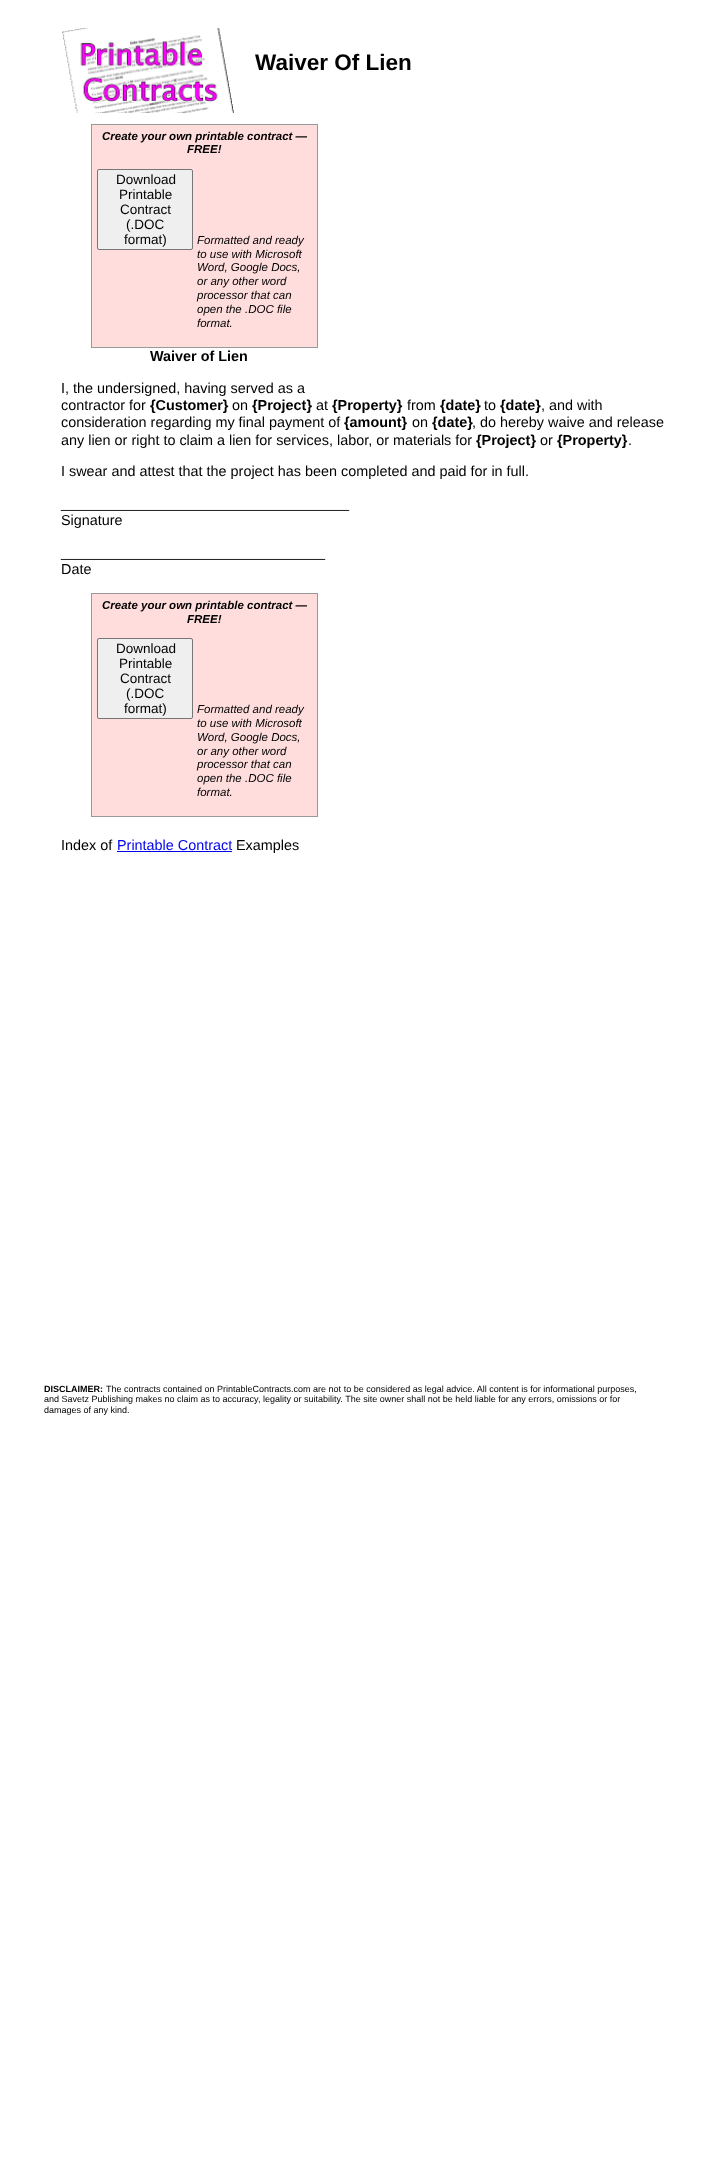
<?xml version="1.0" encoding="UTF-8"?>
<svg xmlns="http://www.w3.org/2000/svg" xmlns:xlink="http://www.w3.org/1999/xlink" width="722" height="2164">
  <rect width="100%" height="100%" fill="#ffffff" />
  <image x="62" y="28" width="172" height="85" xlink:href="image1.png" />
  <rect x="91.5" y="124.5" width="226" height="223" fill="#ffdddd" stroke="#999999" />
  <rect x="97.5" y="169.5" width="95" height="80" rx="1.5" fill="#efefef" stroke="#767676" />
  <rect x="91.5" y="593.5" width="226" height="223" fill="#ffdddd" stroke="#999999" />
  <rect x="97.5" y="638.5" width="95" height="80" rx="1.5" fill="#efefef" stroke="#767676" />
  <rect x="117" y="851" width="115" height="1" fill="#0000ee" />
  <text x="255" y="70" style="font-family: Liberation Sans; font-size: 22.5px; font-weight: bold; fill: #000000">Waiver Of Lien</text>
  <text x="102" y="140" style="font-family: Liberation Sans; font-size: 11.5px; font-weight: bold; font-style: italic; fill: #000000">Create your own printable contract —</text>
  <text x="187" y="153" style="font-family: Liberation Sans; font-size: 11.5px; font-weight: bold; font-style: italic; fill: #000000">FREE!</text>
  <text x="116" y="184" style="font-family: Liberation Sans; font-size: 13.5px; fill: #000000">Download</text>
  <text x="119" y="199" style="font-family: Liberation Sans; font-size: 13.5px; fill: #000000">Printable</text>
  <text x="120" y="214" style="font-family: Liberation Sans; font-size: 13.5px; fill: #000000">Contract</text>
  <text x="126" y="229" style="font-family: Liberation Sans; font-size: 13.5px; fill: #000000">(.DOC</text>
  <text x="124" y="244" style="font-family: Liberation Sans; font-size: 13.5px; fill: #000000">format)</text>
  <text x="197" y="244" style="font-family: Liberation Sans; font-size: 11.5px; font-style: italic; fill: #000000">Formatted and ready</text>
  <text x="197" y="258" style="font-family: Liberation Sans; font-size: 11.5px; font-style: italic; fill: #000000">to use with Microsoft</text>
  <text x="197" y="271" style="font-family: Liberation Sans; font-size: 11.5px; font-style: italic; fill: #000000">Word, Google Docs,</text>
  <text x="197" y="285" style="font-family: Liberation Sans; font-size: 11.5px; font-style: italic; fill: #000000">or any other word</text>
  <text x="197" y="299" style="font-family: Liberation Sans; font-size: 11.5px; font-style: italic; fill: #000000">processor that can</text>
  <text x="197" y="313" style="font-family: Liberation Sans; font-size: 11.5px; font-style: italic; fill: #000000">open the .DOC file</text>
  <text x="197" y="327" style="font-family: Liberation Sans; font-size: 11.5px; font-style: italic; fill: #000000">format.</text>
  <text x="150" y="361" style="font-family: Liberation Sans; font-size: 14.4px; font-weight: bold; fill: #000000">Waiver of Lien</text>
  <text x="61" y="393" style="font-family: Liberation Sans; font-size: 14.4px; fill: #000000">I, the undersigned, having served as a</text>
  <text x="61" y="410" style="font-family: Liberation Sans; font-size: 14.4px; fill: #000000">contractor for</text>
  <text x="150" y="410" style="font-family: Liberation Sans; font-size: 14.4px; font-weight: bold; fill: #000000">{Customer}</text>
  <text x="232" y="410" style="font-family: Liberation Sans; font-size: 14.4px; fill: #000000">on</text>
  <text x="252" y="410" style="font-family: Liberation Sans; font-size: 14.4px; font-weight: bold; fill: #000000">{Project}</text>
  <text x="316" y="410" style="font-family: Liberation Sans; font-size: 14.4px; fill: #000000">at</text>
  <text x="332" y="410" style="font-family: Liberation Sans; font-size: 14.4px; font-weight: bold; fill: #000000">{Property}</text>
  <text x="407" y="410" style="font-family: Liberation Sans; font-size: 14.4px; fill: #000000">from</text>
  <text x="440" y="410" style="font-family: Liberation Sans; font-size: 14.4px; font-weight: bold; fill: #000000">{date}</text>
  <text x="484" y="410" style="font-family: Liberation Sans; font-size: 14.4px; fill: #000000">to</text>
  <text x="500" y="410" style="font-family: Liberation Sans; font-size: 14.4px; font-weight: bold; fill: #000000">{date}</text>
  <text x="541" y="410" style="font-family: Liberation Sans; font-size: 14.4px; fill: #000000">, and with</text>
  <text x="61" y="427" style="font-family: Liberation Sans; font-size: 14.4px; fill: #000000">consideration regarding my final payment of</text>
  <text x="344" y="427" style="font-family: Liberation Sans; font-size: 14.4px; font-weight: bold; fill: #000000">{amount}</text>
  <text x="412" y="427" style="font-family: Liberation Sans; font-size: 14.4px; fill: #000000">on</text>
  <text x="432" y="427" style="font-family: Liberation Sans; font-size: 14.4px; font-weight: bold; fill: #000000">{date}</text>
  <text x="472" y="427" style="font-family: Liberation Sans; font-size: 14.4px; fill: #000000">, do hereby waive and release</text>
  <text x="61" y="445" style="font-family: Liberation Sans; font-size: 14.4px; fill: #000000">any lien or right to claim a lien for services, labor, or materials for</text>
  <text x="476" y="445" style="font-family: Liberation Sans; font-size: 14.4px; font-weight: bold; fill: #000000">{Project}</text>
  <text x="540" y="445" style="font-family: Liberation Sans; font-size: 14.4px; fill: #000000">or</text>
  <text x="557" y="445" style="font-family: Liberation Sans; font-size: 14.4px; font-weight: bold; fill: #000000">{Property}</text>
  <text x="628" y="445" style="font-family: Liberation Sans; font-size: 14.4px; fill: #000000">.</text>
  <text x="61" y="476" style="font-family: Liberation Sans; font-size: 14.4px; fill: #000000">I swear and attest that the project has been completed and paid for in full.</text>
  <text x="61" y="508" style="font-family: Liberation Sans; font-size: 14.4px; fill: #000000">____________________________________</text>
  <text x="61" y="525" style="font-family: Liberation Sans; font-size: 14.4px; fill: #000000">Signature</text>
  <text x="61" y="557" style="font-family: Liberation Sans; font-size: 14.4px; fill: #000000">_________________________________</text>
  <text x="61" y="574" style="font-family: Liberation Sans; font-size: 14.4px; fill: #000000">Date</text>
  <text x="102" y="609" style="font-family: Liberation Sans; font-size: 11.5px; font-weight: bold; font-style: italic; fill: #000000">Create your own printable contract —</text>
  <text x="187" y="623" style="font-family: Liberation Sans; font-size: 11.5px; font-weight: bold; font-style: italic; fill: #000000">FREE!</text>
  <text x="116" y="653" style="font-family: Liberation Sans; font-size: 13.5px; fill: #000000">Download</text>
  <text x="119" y="668" style="font-family: Liberation Sans; font-size: 13.5px; fill: #000000">Printable</text>
  <text x="120" y="683" style="font-family: Liberation Sans; font-size: 13.5px; fill: #000000">Contract</text>
  <text x="126" y="698" style="font-family: Liberation Sans; font-size: 13.5px; fill: #000000">(.DOC</text>
  <text x="124" y="713" style="font-family: Liberation Sans; font-size: 13.5px; fill: #000000">format)</text>
  <text x="197" y="713" style="font-family: Liberation Sans; font-size: 11.5px; font-style: italic; fill: #000000">Formatted and ready</text>
  <text x="197" y="727" style="font-family: Liberation Sans; font-size: 11.5px; font-style: italic; fill: #000000">to use with Microsoft</text>
  <text x="197" y="741" style="font-family: Liberation Sans; font-size: 11.5px; font-style: italic; fill: #000000">Word, Google Docs,</text>
  <text x="197" y="755" style="font-family: Liberation Sans; font-size: 11.5px; font-style: italic; fill: #000000">or any other word</text>
  <text x="197" y="768" style="font-family: Liberation Sans; font-size: 11.5px; font-style: italic; fill: #000000">processor that can</text>
  <text x="197" y="782" style="font-family: Liberation Sans; font-size: 11.5px; font-style: italic; fill: #000000">open the .DOC file</text>
  <text x="197" y="796" style="font-family: Liberation Sans; font-size: 11.5px; font-style: italic; fill: #000000">format.</text>
  <text x="61" y="850" style="font-family: Liberation Sans; font-size: 14.4px; fill: #000000">Index of</text>
  <text x="117" y="850" style="font-family: Liberation Sans; font-size: 14.4px; fill: #0000ee">Printable Contract</text>
  <text x="236" y="850" style="font-family: Liberation Sans; font-size: 14.4px; fill: #000000">Examples</text>
  <text x="44" y="1392" style="font-family: Liberation Sans; font-size: 9px; font-weight: bold; fill: #000000">DISCLAIMER:</text>
  <text x="106" y="1392" style="font-family: Liberation Sans; font-size: 9px; fill: #000000">The contracts contained on PrintableContracts.com are not to be considered as legal advice. All content is for informational purposes,</text>
  <text x="44" y="1402" style="font-family: Liberation Sans; font-size: 9px; fill: #000000">and Savetz Publishing makes no claim as to accuracy, legality or suitability. The site owner shall not be held liable for any errors, omissions or for</text>
  <text x="44" y="1413" style="font-family: Liberation Sans; font-size: 9px; fill: #000000">damages of any kind.</text>
</svg>
